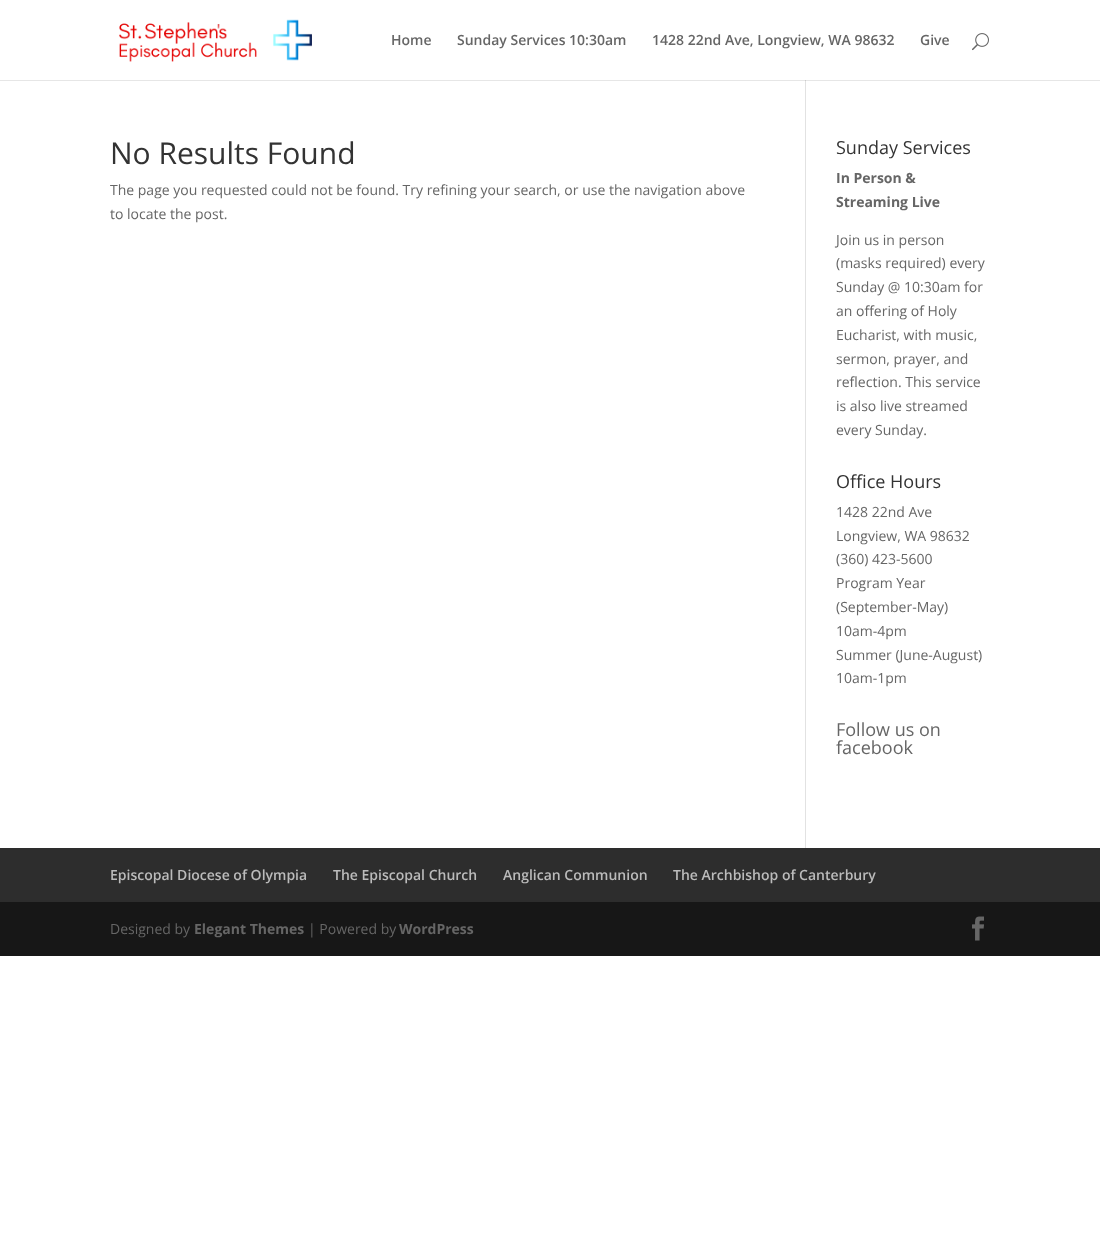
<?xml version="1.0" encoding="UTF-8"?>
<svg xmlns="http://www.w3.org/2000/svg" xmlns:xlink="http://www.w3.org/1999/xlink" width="1100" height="1243">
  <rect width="100%" height="100%" fill="#ffffff" />
  <rect y="80" width="1100" height="1" fill="#e6e6e6" />
  <image x="119" y="19" width="193" height="43" xlink:href="image1.png" />
  <image x="972" y="33" width="17" height="18" xlink:href="image2.png" />
  <rect x="805" y="80" width="1" height="768" fill="#e2e2e2" />
  <rect x="805" y="80" width="1" height="1" fill="#cbcbcb" />
  <rect y="848" width="1100" height="54" fill="#2d2d2d" />
  <rect y="902" width="1100" height="54" fill="#171717" />
  <image x="972" y="916" width="12" height="25" xlink:href="image3.png" />
  <text x="391" y="45" style="font-family: Open Sans; font-size: 14px; font-weight: 600; fill: #666666">Home</text>
  <text x="457" y="45" style="font-family: Open Sans; font-size: 14px; font-weight: 600; fill: #666666">Sunday Services 10:30am</text>
  <text x="652" y="45" style="font-family: Open Sans; font-size: 14px; font-weight: 600; fill: #666666">1428 22nd Ave, Longview, WA 98632</text>
  <text x="920" y="45" style="font-family: Open Sans; font-size: 14px; font-weight: 600; fill: #666666">Give</text>
  <text x="110" y="164" style="font-family: Open Sans; font-size: 30px; fill: #333333">No Results Found</text>
  <text x="110" y="195" style="font-family: Open Sans; font-size: 14px; fill: #666666">The page you requested could not be found. Try refining your search, or use the navigation above</text>
  <text x="110" y="219" style="font-family: Open Sans; font-size: 14px; fill: #666666">to locate the post.</text>
  <text x="836" y="154" style="font-family: Open Sans; font-size: 18px; fill: #333333">Sunday Services</text>
  <text x="836" y="183" style="font-family: Open Sans; font-size: 14px; font-weight: bold; fill: #666666">In Person &amp;</text>
  <text x="836" y="207" style="font-family: Open Sans; font-size: 14px; font-weight: bold; fill: #666666">Streaming Live</text>
  <text x="836" y="245" style="font-family: Open Sans; font-size: 14px; fill: #666666">Join us in person</text>
  <text x="836" y="268" style="font-family: Open Sans; font-size: 14px; fill: #666666">(masks required) every</text>
  <text x="836" y="292" style="font-family: Open Sans; font-size: 14px; fill: #666666">Sunday @ 10:30am for</text>
  <text x="836" y="316" style="font-family: Open Sans; font-size: 14px; fill: #666666">an offering of Holy</text>
  <text x="836" y="340" style="font-family: Open Sans; font-size: 14px; fill: #666666">Eucharist, with music,</text>
  <text x="836" y="364" style="font-family: Open Sans; font-size: 14px; fill: #666666">sermon, prayer, and</text>
  <text x="836" y="387" style="font-family: Open Sans; font-size: 14px; fill: #666666">reflection. This service</text>
  <text x="836" y="411" style="font-family: Open Sans; font-size: 14px; fill: #666666">is also live streamed</text>
  <text x="836" y="435" style="font-family: Open Sans; font-size: 14px; fill: #666666">every Sunday.</text>
  <text x="836" y="488" style="font-family: Open Sans; font-size: 18px; fill: #333333">Office Hours</text>
  <text x="836" y="517" style="font-family: Open Sans; font-size: 14px; fill: #666666">1428 22nd Ave</text>
  <text x="836" y="541" style="font-family: Open Sans; font-size: 14px; fill: #666666">Longview, WA 98632</text>
  <text x="836" y="564" style="font-family: Open Sans; font-size: 14px; fill: #666666">(360) 423-5600</text>
  <text x="836" y="588" style="font-family: Open Sans; font-size: 14px; fill: #666666">Program Year</text>
  <text x="836" y="612" style="font-family: Open Sans; font-size: 14px; fill: #666666">(September-May)</text>
  <text x="836" y="636" style="font-family: Open Sans; font-size: 14px; fill: #666666">10am-4pm</text>
  <text x="836" y="660" style="font-family: Open Sans; font-size: 14px; fill: #666666">Summer (June-August)</text>
  <text x="836" y="683" style="font-family: Open Sans; font-size: 14px; fill: #666666">10am-1pm</text>
  <text x="836" y="736" style="font-family: Open Sans; font-size: 18px; fill: #666666">Follow us on</text>
  <text x="836" y="754" style="font-family: Open Sans; font-size: 18px; fill: #666666">facebook</text>
  <text x="110" y="880" style="font-family: Open Sans; font-size: 14px; font-weight: 600; fill: #bbbbbb">Episcopal Diocese of Olympia</text>
  <text x="333" y="880" style="font-family: Open Sans; font-size: 14px; font-weight: 600; fill: #bbbbbb">The Episcopal Church</text>
  <text x="503" y="880" style="font-family: Open Sans; font-size: 14px; font-weight: 600; fill: #bbbbbb">Anglican Communion</text>
  <text x="673" y="880" style="font-family: Open Sans; font-size: 14px; font-weight: 600; fill: #bbbbbb">The Archbishop of Canterbury</text>
  <text x="110" y="934" style="font-family: Open Sans; font-size: 14px; fill: #666666">Designed by</text>
  <text x="194" y="934" style="font-family: Open Sans; font-size: 14px; font-weight: bold; fill: #666666">Elegant Themes</text>
  <text x="308" y="934" style="font-family: Open Sans; font-size: 14px; fill: #666666">| Powered by</text>
  <text x="399" y="934" style="font-family: Open Sans; font-size: 14px; font-weight: bold; fill: #666666">WordPress</text>
</svg>
